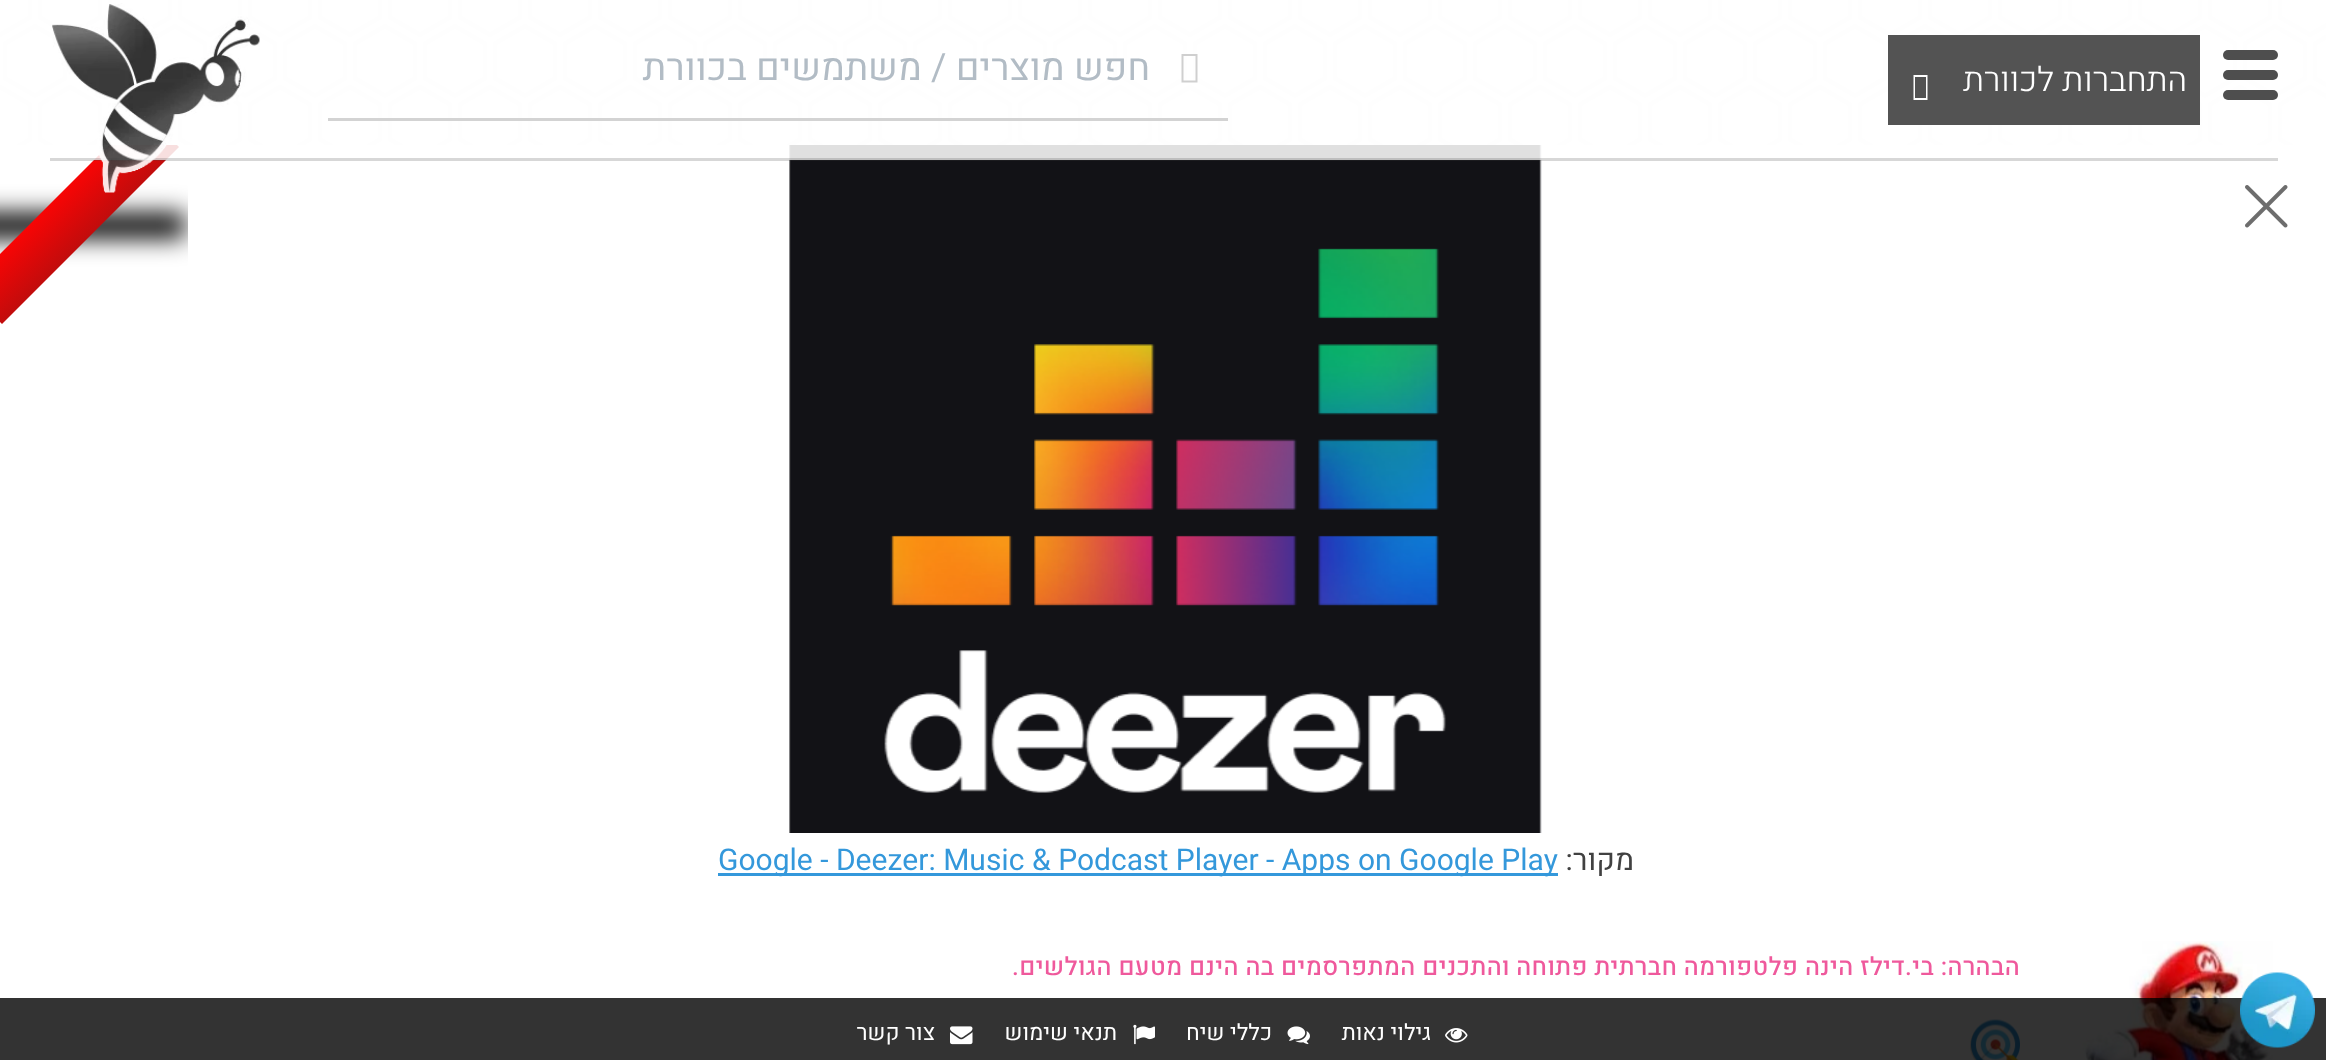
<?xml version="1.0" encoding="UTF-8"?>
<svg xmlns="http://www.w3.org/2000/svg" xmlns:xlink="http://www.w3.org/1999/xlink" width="2326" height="1060">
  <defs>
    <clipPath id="clip1"><rect x="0" y="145" width="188" height="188" /></clipPath>
    <clipPath id="clip2"><rect y="145" width="188" height="188" /></clipPath>
    <linearGradient id="g1" gradientUnits="userSpaceOnUse" x1="55" y1="200" x2="90" y2="235"><stop offset="0" stop-color="#f70505" /><stop offset="1" stop-color="#c20c0c" /></linearGradient>
  </defs>
  <rect width="100%" height="100%" fill="#ffffff" />
  <image x="0" y="0" width="2326" height="145" xlink:href="image1.png" />
  <image x="0" y="0" width="2326" height="145" xlink:href="image3.png" />
  <image x="789" y="145" width="753" height="688" xlink:href="image5.png" />
  <image x="789" y="145" width="753" height="688" xlink:href="image6.png" />
  <g clip-path="url(#clip1)">
    <rect x="-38" y="213" width="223" height="25" fill="#000000" filter="blur(12.5px)" />
  </g>
  <g clip-path="url(#clip2)">
    <path d="M -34 288 l 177 -177 l 36 36 l -177 177 z" fill="url(#g1)" />
  </g>
  <rect width="2326" height="160" fill="#ffffff" fill-opacity="0.87" />
  <rect x="2223" y="50" width="55" height="10" rx="5" fill="#4e4e4e" />
  <rect x="2223" y="70" width="55" height="10" rx="5" fill="#4e4e4e" />
  <rect x="2223" y="90" width="55" height="10" rx="5" fill="#4e4e4e" />
  <rect x="50" y="158" width="2228" height="3" fill="#444444" fill-opacity="0.21" />
  <rect x="1888" y="35" width="312" height="90" fill="#535353" />
  <path d="M 1913.5 100 v -25 h 14 v 25 z m 1.5 -2 h 11 v -21 h -11 z" fill="#ffffff" />
  <path d="M 1181.5 82.5 v -28.5 h 16 v 28.5 z m 2 -2 h 12 v -24.5 h -12 z" fill="#cfcfcf" />
  <rect x="328" y="118" width="900" height="3" fill="#d3d3d3" />
  <image x="52" y="3" width="208" height="190" xlink:href="image2.png" />
  <image x="2245" y="185" width="43" height="43" xlink:href="image4.png" />
  <rect x="718" y="873" width="840" height="3" fill="#3498db" />
  <image x="2082" y="941" width="191" height="119" xlink:href="image7.png" />
  <image x="1970" y="1019" width="50" height="41" xlink:href="image8.png" />
  <rect y="998" width="2326" height="62" fill="#000000" fill-opacity="0.8" />
  <image x="2240" y="972" width="75" height="76" xlink:href="image9.png" />
  <image x="1445" y="1028" width="23" height="15" xlink:href="image10.png" />
  <image x="1287" y="1026" width="23" height="19" xlink:href="image11.png" />
  <image x="1133" y="1024" width="22" height="21" xlink:href="image12.png" />
  <image x="950" y="1026" width="23" height="19" xlink:href="image13.png" />
  <text x="2187" y="91" style="font-family: Heebo; font-size: 33.75px; font-weight: 300; direction: rtl; fill: #ffffff">התחברות לכוורת</text>
  <text x="1150" y="80" style="font-family: Heebo; font-size: 37.5px; direction: rtl; fill: #b2bcc5">חפש מוצרים / משתמשים בכוורת</text>
  <text x="1634" y="870" style="font-family: Heebo; font-size: 30px; direction: rtl; fill: #414141">מקור:</text>
  <text x="718" y="870" style="font-family: Heebo; font-size: 30px; fill: #3498db">Google - Deezer: Music &amp; Podcast Player - Apps on Google Play</text>
  <text x="2020" y="975" style="font-family: Heebo; font-size: 25px; font-weight: 500; letter-spacing: 0.4px; direction: rtl; fill: #ef599c">הבהרה: בי.דילז הינה פלטפורמה חברתית פתוחה</text>
  <text x="1510" y="975" style="font-family: Heebo; font-size: 25px; font-weight: 500; letter-spacing: 0.4px; direction: rtl; fill: #ef599c">והתכנים המתפרסמים בה הינם מטעם הגולשים.</text>
  <text x="1431" y="1040" style="font-family: Heebo; font-size: 22.5px; direction: rtl; fill: #ffffff">גילוי נאות</text>
  <text x="1272" y="1040" style="font-family: Heebo; font-size: 22.5px; direction: rtl; fill: #ffffff">כללי שיח</text>
  <text x="1117" y="1040" style="font-family: Heebo; font-size: 22.5px; direction: rtl; fill: #ffffff">תנאי שימוש</text>
  <text x="935" y="1040" style="font-family: Heebo; font-size: 22.5px; direction: rtl; fill: #ffffff">צור קשר</text>
</svg>
